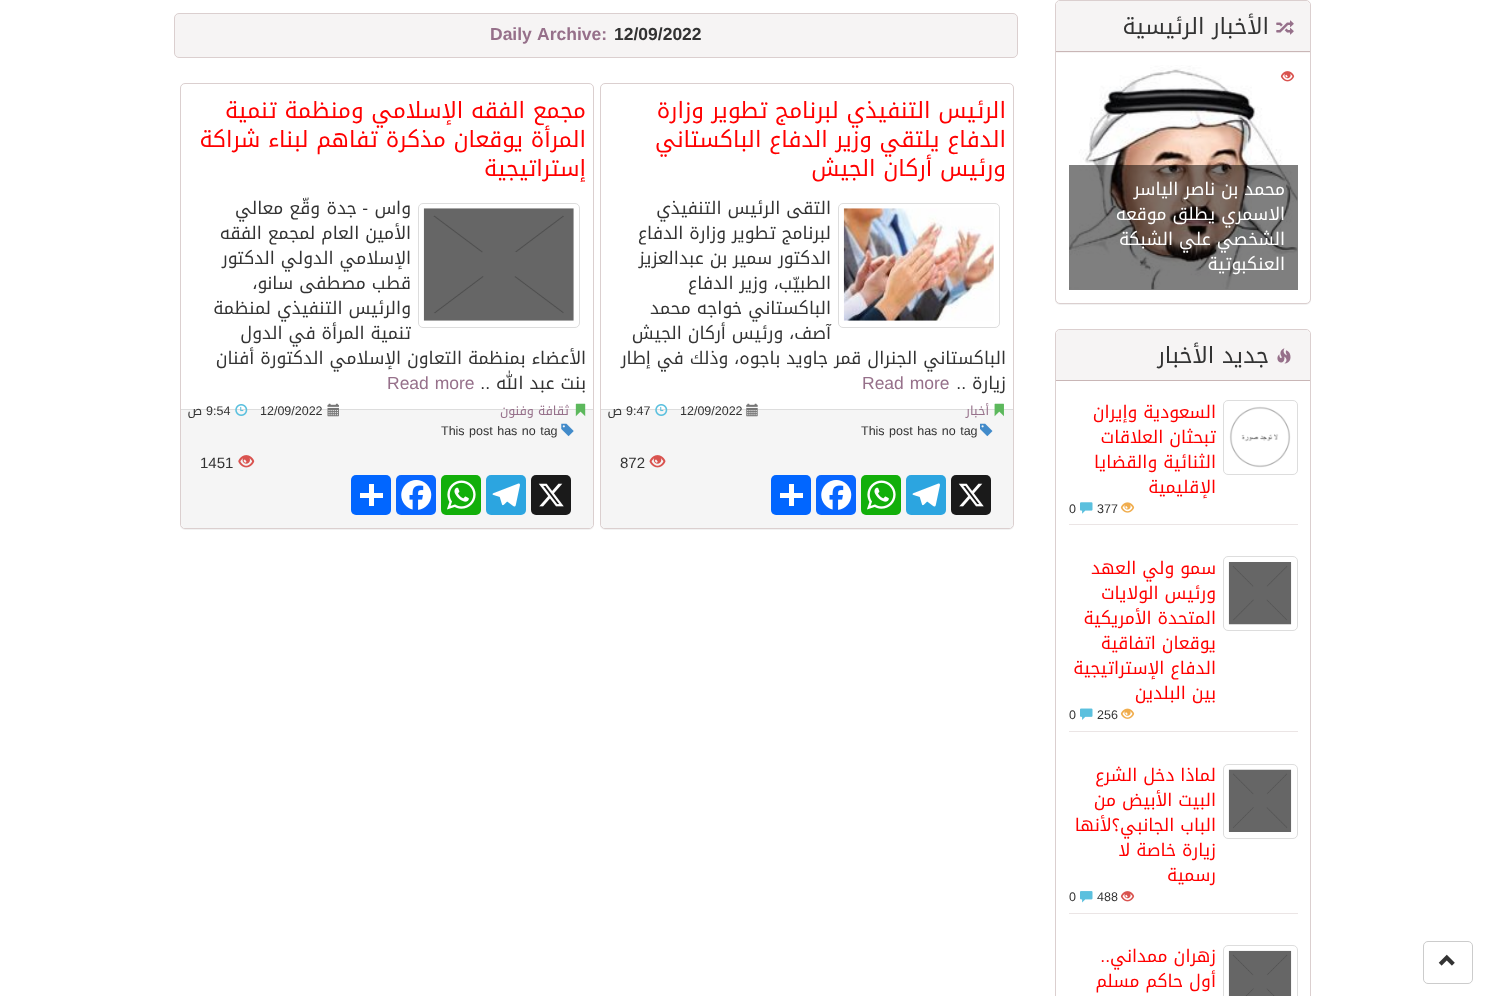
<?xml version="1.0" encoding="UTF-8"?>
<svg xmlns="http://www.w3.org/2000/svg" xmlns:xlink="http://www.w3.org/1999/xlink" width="1485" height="996">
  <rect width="100%" height="100%" fill="#ffffff" />
  <rect x="1423.5" y="941.5" width="49" height="42" rx="4.5" fill="none" stroke="#cccccc" />
  <image x="1438" y="954" width="17" height="12" xlink:href="image1.png" />
  <rect x="1055" y="1" width="256" height="304" rx="5" fill="#000000" fill-opacity="0.05" filter="blur(0.5px)" />
  <rect x="1055.5" y="0.5" width="255" height="303" rx="4.5" fill="#ffffff" stroke="#dbcfcf" />
  <path d="M 1060 1 h 246 c 2 0 4 2 4 4 v 48 h -254 v -48 c 0 -2 2 -4 4 -4 z" fill="#f6f4f4" />
  <rect x="1056" y="51" width="254" height="1" fill="#c9b6b6" />
  <image x="1276" y="20" width="18" height="15" xlink:href="image2.png" />
  <image x="1069" y="65" width="229" height="225" xlink:href="image3.png" />
  <image x="1280" y="71" width="15" height="11" xlink:href="image4.png" />
  <rect x="1069" y="165" width="229" height="125" fill="#000000" fill-opacity="0.5" />
  <rect x="1055.5" y="329.5" width="255" height="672" rx="4.5" fill="none" stroke="#dbcfcf" />
  <path d="M 1060 330 h 246 c 2 0 4 2 4 4 v 47 h -254 v -47 c 0 -2 2 -4 4 -4 z" fill="#f6f4f4" />
  <rect x="1056" y="380" width="254" height="1" fill="#c9b6b6" />
  <image x="1277" y="348" width="14" height="16" xlink:href="image5.png" />
  <rect x="1223.5" y="400.5" width="74" height="74" rx="4.5" fill="none" stroke="#dddddd" />
  <image x="1229" y="406" width="62" height="62" xlink:href="image6.png" />
  <image x="1120" y="502" width="15" height="11" xlink:href="image7.png" />
  <image x="1080" y="502" width="13" height="12" xlink:href="image8.png" />
  <rect x="1069" y="524" width="229" height="1" fill="#ebe5e5" />
  <rect x="1223.5" y="556.5" width="74" height="74" rx="4.5" fill="none" stroke="#dddddd" />
  <image x="1228" y="562" width="64" height="63" xlink:href="image9.png" />
  <image x="1120" y="708" width="15" height="11" xlink:href="image10.png" />
  <image x="1080" y="708" width="13" height="12" xlink:href="image11.png" />
  <rect x="1069" y="731" width="229" height="1" fill="#ebe5e5" />
  <rect x="1223.5" y="764.5" width="74" height="74" rx="4.5" fill="none" stroke="#dddddd" />
  <image x="1228" y="769" width="64" height="63" xlink:href="image12.png" />
  <image x="1120" y="891" width="15" height="11" xlink:href="image4.png" />
  <image x="1080" y="891" width="13" height="12" xlink:href="image13.png" />
  <rect x="1069" y="913" width="229" height="1" fill="#ebe5e5" />
  <rect x="1223.5" y="945.5" width="74" height="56" rx="4.5" fill="none" stroke="#dddddd" />
  <image x="1228" y="950" width="64" height="46" xlink:href="image14.png" />
  <rect x="174.5" y="13.5" width="843" height="44" rx="4.5" fill="#f6f4f4" stroke="#dbcfcf" />
  <rect x="600" y="84" width="414" height="446" rx="5" fill="#000000" fill-opacity="0.05" filter="blur(0.5px)" />
  <rect x="600.5" y="83.5" width="413" height="445" rx="4.5" fill="#ffffff" stroke="#dbcfcf" />
  <rect x="838.5" y="203.5" width="161" height="124" rx="4.5" fill="none" stroke="#dddddd" />
  <image x="843" y="208" width="151" height="113" xlink:href="image15.png" />
  <path d="M 601 409 h 412 v 115 c 0 2 -2 4 -4 4 h -404 c -2 0 -4 -2 -4 -4 z" fill="#f5f5f5" />
  <rect x="601" y="409" width="412" height="1" fill="#dddddd" />
  <image x="994" y="403" width="10" height="14" xlink:href="image16.png" />
  <image x="746" y="403" width="12" height="14" xlink:href="image17.png" />
  <image x="655" y="404" width="13" height="12" xlink:href="image18.png" />
  <image x="980" y="423" width="13" height="14" xlink:href="image19.png" />
  <image x="649" y="455" width="17" height="13" xlink:href="image20.png" />
  <rect x="951" y="475" width="40" height="40" rx="5" fill="#1a1a1a" />
  <image x="958" y="483" width="26" height="24" xlink:href="image21.png" />
  <rect x="906" y="475" width="40" height="40" rx="5" fill="#2ca5e0" />
  <image x="912" y="483" width="28" height="24" xlink:href="image22.png" />
  <rect x="861" y="475" width="40" height="40" rx="5" fill="#12af0a" />
  <image x="867" y="480" width="29" height="30" xlink:href="image23.png" />
  <rect x="816" y="475" width="40" height="40" rx="5" fill="#0866ff" />
  <image x="821" y="480" width="31" height="30" xlink:href="image24.png" />
  <rect x="771" y="475" width="40" height="40" rx="5" fill="#0166ff" />
  <rect x="789" y="484" width="5" height="22" fill="#ffffff" />
  <rect x="780" y="493" width="23" height="5" fill="#ffffff" />
  <rect x="180" y="84" width="414" height="446" rx="5" fill="#000000" fill-opacity="0.05" filter="blur(0.5px)" />
  <rect x="180.5" y="83.5" width="413" height="445" rx="4.5" fill="#ffffff" stroke="#dbcfcf" />
  <rect x="418.5" y="203.5" width="161" height="124" rx="4.5" fill="none" stroke="#dddddd" />
  <image x="423" y="208" width="151" height="113" xlink:href="image25.png" />
  <path d="M 181 409 h 412 v 115 c 0 2 -2 4 -4 4 h -404 c -2 0 -4 -2 -4 -4 z" fill="#f5f5f5" />
  <rect x="181" y="409" width="412" height="1" fill="#dddddd" />
  <image x="575" y="403" width="11" height="14" xlink:href="image26.png" />
  <image x="327" y="403" width="12" height="14" xlink:href="image27.png" />
  <image x="235" y="404" width="13" height="12" xlink:href="image18.png" />
  <image x="561" y="423" width="13" height="14" xlink:href="image28.png" />
  <image x="238" y="455" width="17" height="13" xlink:href="image29.png" />
  <rect x="531" y="475" width="40" height="40" rx="5" fill="#1a1a1a" />
  <image x="538" y="483" width="26" height="24" xlink:href="image21.png" />
  <rect x="486" y="475" width="40" height="40" rx="5" fill="#2ca5e0" />
  <image x="492" y="483" width="28" height="24" xlink:href="image22.png" />
  <rect x="441" y="475" width="40" height="40" rx="5" fill="#12af0a" />
  <image x="447" y="480" width="29" height="30" xlink:href="image23.png" />
  <rect x="396" y="475" width="40" height="40" rx="5" fill="#0866ff" />
  <image x="401" y="480" width="31" height="30" xlink:href="image24.png" />
  <rect x="351" y="475" width="40" height="40" rx="5" fill="#0166ff" />
  <rect x="369" y="484" width="5" height="22" fill="#ffffff" />
  <rect x="360" y="493" width="23" height="5" fill="#ffffff" />
  <text x="1269" y="34" style="font-family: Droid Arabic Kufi; font-size: 22.5px; direction: rtl; fill: #333333">الأخبار الرئيسية</text>
  <text x="1285" y="195" style="font-family: Droid Arabic Kufi; font-size: 17.5px; direction: rtl; fill: #ffffff">محمد بن ناصر الياسر</text>
  <text x="1285" y="220" style="font-family: Droid Arabic Kufi; font-size: 17.5px; direction: rtl; fill: #ffffff">الاسمري يطلق موقعه</text>
  <text x="1285" y="245" style="font-family: Droid Arabic Kufi; font-size: 17.5px; direction: rtl; fill: #ffffff">الشخصي علي الشبكة</text>
  <text x="1285" y="270" style="font-family: Droid Arabic Kufi; font-size: 17.5px; direction: rtl; fill: #ffffff">العنكبوتية</text>
  <text x="1269" y="363" style="font-family: Droid Arabic Kufi; font-size: 22.5px; direction: rtl; fill: #333333">جديد الأخبار</text>
  <text x="1216" y="418" style="font-family: Droid Arabic Kufi; font-size: 17.5px; direction: rtl; fill: #ff0000">السعودية وإيران</text>
  <text x="1216" y="443" style="font-family: Droid Arabic Kufi; font-size: 17.5px; direction: rtl; fill: #ff0000">تبحثان العلاقات</text>
  <text x="1216" y="468" style="font-family: Droid Arabic Kufi; font-size: 17.5px; direction: rtl; fill: #ff0000">الثنائية والقضايا</text>
  <text x="1216" y="493" style="font-family: Droid Arabic Kufi; font-size: 17.5px; direction: rtl; fill: #ff0000">الإقليمية</text>
  <text x="1097" y="513" style="font-family: Liberation Sans; font-size: 12.5px; fill: #333333">377</text>
  <text x="1069" y="513" style="font-family: Liberation Sans; font-size: 12.5px; fill: #333333">0</text>
  <text x="1216" y="574" style="font-family: Droid Arabic Kufi; font-size: 17.5px; direction: rtl; fill: #ff0000">سمو ولي العهد</text>
  <text x="1216" y="599" style="font-family: Droid Arabic Kufi; font-size: 17.5px; direction: rtl; fill: #ff0000">ورئيس الولايات</text>
  <text x="1216" y="624" style="font-family: Droid Arabic Kufi; font-size: 17.5px; direction: rtl; fill: #ff0000">المتحدة الأمريكية</text>
  <text x="1216" y="649" style="font-family: Droid Arabic Kufi; font-size: 17.5px; direction: rtl; fill: #ff0000">يوقعان اتفاقية</text>
  <text x="1216" y="674" style="font-family: Droid Arabic Kufi; font-size: 17.5px; direction: rtl; fill: #ff0000">الدفاع الإستراتيجية</text>
  <text x="1216" y="699" style="font-family: Droid Arabic Kufi; font-size: 17.5px; direction: rtl; fill: #ff0000">بين البلدين</text>
  <text x="1097" y="719" style="font-family: Liberation Sans; font-size: 12.5px; fill: #333333">256</text>
  <text x="1069" y="719" style="font-family: Liberation Sans; font-size: 12.5px; fill: #333333">0</text>
  <text x="1216" y="781" style="font-family: Droid Arabic Kufi; font-size: 17.5px; direction: rtl; fill: #ff0000">لماذا دخل الشرع</text>
  <text x="1216" y="806" style="font-family: Droid Arabic Kufi; font-size: 17.5px; direction: rtl; fill: #ff0000">البيت الأبيض من</text>
  <text x="1216" y="831" style="font-family: Droid Arabic Kufi; font-size: 17.5px; direction: rtl; fill: #ff0000">الباب الجانبي؟لأنها</text>
  <text x="1216" y="856" style="font-family: Droid Arabic Kufi; font-size: 17.5px; direction: rtl; fill: #ff0000">زيارة خاصة لا</text>
  <text x="1216" y="881" style="font-family: Droid Arabic Kufi; font-size: 17.5px; direction: rtl; fill: #ff0000">رسمية</text>
  <text x="1097" y="901" style="font-family: Liberation Sans; font-size: 12.5px; fill: #333333">488</text>
  <text x="1069" y="901" style="font-family: Liberation Sans; font-size: 12.5px; fill: #333333">0</text>
  <text x="1216" y="962" style="font-family: Droid Arabic Kufi; font-size: 17.5px; direction: rtl; fill: #ff0000">زهران ممداني</text>
  <text x="1110" y="962" style="font-family: Liberation Sans; font-size: 17.5px; direction: rtl; fill: #ff0000">..</text>
  <text x="1216" y="987" style="font-family: Droid Arabic Kufi; font-size: 17.5px; direction: rtl; fill: #ff0000">أول حاكم مسلم</text>
  <text x="614" y="40" style="font-family: Liberation Sans; font-size: 17.5px; font-weight: bold; fill: #333333">12/09/2022</text>
  <text x="490" y="40" word-spacing="1" style="font-family: Liberation Sans; font-size: 17.5px; font-weight: bold; fill: #96708a">Daily Archive:</text>
  <text x="1006" y="118" style="font-family: Droid Arabic Kufi; font-size: 22.5px; direction: rtl; fill: #ff0000">الرئيس التنفيذي لبرنامج تطوير وزارة</text>
  <text x="1006" y="147" style="font-family: Droid Arabic Kufi; font-size: 22.5px; direction: rtl; fill: #ff0000">الدفاع يلتقي وزير الدفاع الباكستاني</text>
  <text x="1006" y="176" style="font-family: Droid Arabic Kufi; font-size: 22.5px; direction: rtl; fill: #ff0000">ورئيس أركان الجيش</text>
  <text x="831" y="214" style="font-family: Droid Arabic Kufi; font-size: 17.5px; direction: rtl; fill: #333333">التقى الرئيس التنفيذي</text>
  <text x="831" y="239" style="font-family: Droid Arabic Kufi; font-size: 17.5px; direction: rtl; fill: #333333">لبرنامج تطوير وزارة الدفاع</text>
  <text x="831" y="264" style="font-family: Droid Arabic Kufi; font-size: 17.5px; direction: rtl; fill: #333333">الدكتور سمير بن عبدالعزيز</text>
  <text x="831" y="289" style="font-family: Droid Arabic Kufi; font-size: 17.5px; direction: rtl; fill: #333333">الطبيّب، وزير الدفاع</text>
  <text x="831" y="314" style="font-family: Droid Arabic Kufi; font-size: 17.5px; direction: rtl; fill: #333333">الباكستاني خواجه محمد</text>
  <text x="831" y="339" style="font-family: Droid Arabic Kufi; font-size: 17.5px; direction: rtl; fill: #333333">آصف، ورئيس أركان الجيش</text>
  <text x="1006" y="364" style="font-family: Droid Arabic Kufi; font-size: 17.5px; direction: rtl; fill: #333333">الباكستاني الجنرال قمر جاويد باجوه، وذلك في إطار</text>
  <text x="1006" y="389" style="font-family: Droid Arabic Kufi; font-size: 17.5px; direction: rtl; fill: #333333">زيارة</text>
  <text x="966" y="389" style="font-family: Liberation Sans; font-size: 17.5px; direction: rtl; fill: #333333">..</text>
  <text x="862" y="389" word-spacing="1" style="font-family: Liberation Sans; font-size: 17.5px; fill: #96708a">Read more</text>
  <text x="989" y="415" style="font-family: Droid Arabic Kufi; font-size: 12.5px; direction: rtl; fill: #96708a">أخبار</text>
  <text x="680" y="415" style="font-family: Liberation Sans; font-size: 12.5px; fill: #333333">12/09/2022</text>
  <text x="626" y="415" style="font-family: Liberation Sans; font-size: 12.5px; fill: #333333">9:47</text>
  <text x="622" y="415" style="font-family: Droid Arabic Kufi; font-size: 12.5px; direction: rtl; fill: #333333">ص</text>
  <text x="861" y="435" word-spacing="1" style="font-family: Liberation Sans; font-size: 12.5px; fill: #333333">This post has no tag</text>
  <text x="620" y="468" style="font-family: Liberation Sans; font-size: 15px; fill: #333333">872</text>
  <text x="586" y="118" style="font-family: Droid Arabic Kufi; font-size: 22.5px; direction: rtl; fill: #ff0000">مجمع الفقه الإسلامي ومنظمة تنمية</text>
  <text x="586" y="147" style="font-family: Droid Arabic Kufi; font-size: 22.5px; direction: rtl; fill: #ff0000">المرأة يوقعان مذكرة تفاهم لبناء شراكة</text>
  <text x="586" y="176" style="font-family: Droid Arabic Kufi; font-size: 22.5px; direction: rtl; fill: #ff0000">إستراتيجية</text>
  <text x="411" y="214" style="font-family: Droid Arabic Kufi; font-size: 17.5px; direction: rtl; fill: #333333">واس</text>
  <text x="368" y="214" style="font-family: Liberation Sans; font-size: 17.5px; direction: rtl; fill: #333333">-</text>
  <text x="357" y="214" style="font-family: Droid Arabic Kufi; font-size: 17.5px; direction: rtl; fill: #333333">جدة</text>
  <text x="320" y="214" style="font-family: Droid Arabic Kufi; font-size: 17.5px; direction: rtl; fill: #333333">وقّع معالي</text>
  <text x="411" y="239" style="font-family: Droid Arabic Kufi; font-size: 17.5px; direction: rtl; fill: #333333">الأمين العام لمجمع الفقه</text>
  <text x="411" y="264" style="font-family: Droid Arabic Kufi; font-size: 17.5px; direction: rtl; fill: #333333">الإسلامي الدولي الدكتور</text>
  <text x="411" y="289" style="font-family: Droid Arabic Kufi; font-size: 17.5px; direction: rtl; fill: #333333">قطب مصطفى سانو،</text>
  <text x="411" y="314" style="font-family: Droid Arabic Kufi; font-size: 17.5px; direction: rtl; fill: #333333">والرئيس التنفيذي لمنظمة</text>
  <text x="411" y="339" style="font-family: Droid Arabic Kufi; font-size: 17.5px; direction: rtl; fill: #333333">تنمية المرأة في الدول</text>
  <text x="586" y="364" style="font-family: Droid Arabic Kufi; font-size: 17.5px; direction: rtl; fill: #333333">الأعضاء بمنظمة التعاون الإسلامي الدكتورة أفنان</text>
  <text x="586" y="389" style="font-family: Droid Arabic Kufi; font-size: 17.5px; direction: rtl; fill: #333333">بنت عبد الله</text>
  <text x="490" y="389" style="font-family: Liberation Sans; font-size: 17.5px; direction: rtl; fill: #333333">..</text>
  <text x="387" y="389" word-spacing="1" style="font-family: Liberation Sans; font-size: 17.5px; fill: #96708a">Read more</text>
  <text x="569" y="415" style="font-family: Droid Arabic Kufi; font-size: 12.5px; direction: rtl; fill: #96708a">ثقافة وفنون</text>
  <text x="260" y="415" style="font-family: Liberation Sans; font-size: 12.5px; fill: #333333">12/09/2022</text>
  <text x="206" y="415" style="font-family: Liberation Sans; font-size: 12.5px; fill: #333333">9:54</text>
  <text x="202" y="415" style="font-family: Droid Arabic Kufi; font-size: 12.5px; direction: rtl; fill: #333333">ص</text>
  <text x="441" y="435" word-spacing="1" style="font-family: Liberation Sans; font-size: 12.5px; fill: #333333">This post has no tag</text>
  <text x="200" y="468" style="font-family: Liberation Sans; font-size: 15px; fill: #333333">1451</text>
</svg>
